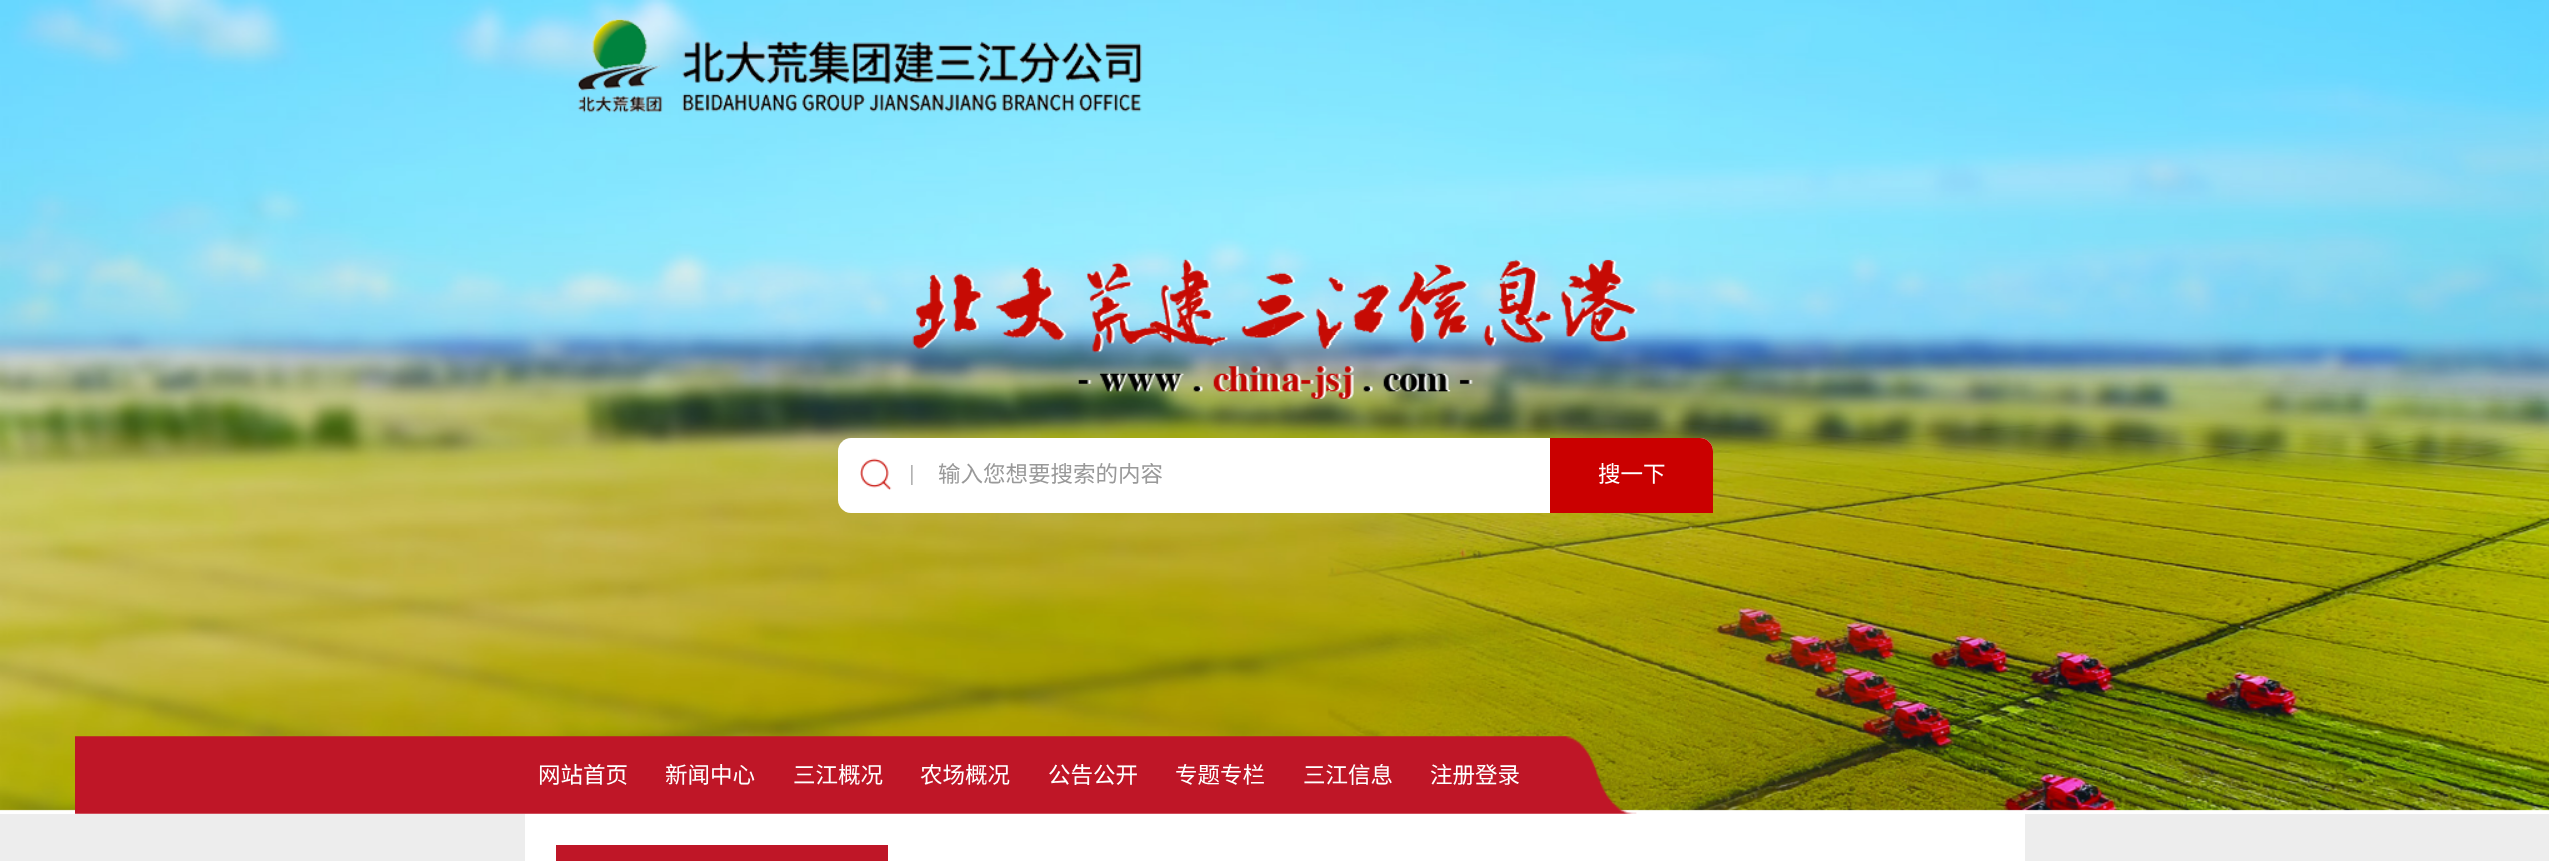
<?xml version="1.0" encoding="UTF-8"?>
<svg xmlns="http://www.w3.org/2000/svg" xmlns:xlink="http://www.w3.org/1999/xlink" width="2549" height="861">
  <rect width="100%" height="100%" fill="#ffffff" />
  <image x="0" y="0" width="2549" height="811" xlink:href="image1.png" />
  <image x="577" y="18" width="565" height="95" xlink:href="image2.png" />
  <image x="912" y="258" width="726" height="141" xlink:href="image3.png" />
  <path d="M 851 438 h 849 c 7 0 13 6 13 13 v 62 h -862 c -7 0 -13 -6 -13 -13 v -49 c 0 -7 6 -13 13 -13 z" fill="#ffffff" />
  <image x="911" y="465" width="2" height="20" xlink:href="image4.png" />
  <image x="860" y="458" width="32" height="32" xlink:href="image5.png" />
  <path d="M 1550 438 h 150 c 7 0 13 6 13 13 v 62 h -163 z" fill="#ca0000" />
  <image x="75" y="736" width="1562" height="78" xlink:href="image6.png" />
  <rect y="814" width="2549" height="47" fill="#ededed" />
  <rect x="525" y="814" width="1500" height="47" fill="#ffffff" />
  <rect x="556" y="845" width="332" height="16" fill="#bf1627" />
  <text x="938" y="482" style="font-family: Noto Sans CJK SC; font-size: 22.5px; fill: #999999">输入您想要搜索的内容</text>
  <text x="1598" y="482" style="font-family: Noto Sans CJK SC; font-size: 22.5px; fill: #ffffff">搜一下</text>
  <text x="538" y="783" style="font-family: Noto Sans CJK SC; font-size: 22.5px; fill: #ffffff">网站首页</text>
  <text x="665" y="783" style="font-family: Noto Sans CJK SC; font-size: 22.5px; fill: #ffffff">新闻中心</text>
  <text x="793" y="783" style="font-family: Noto Sans CJK SC; font-size: 22.5px; fill: #ffffff">三江概况</text>
  <text x="920" y="783" style="font-family: Noto Sans CJK SC; font-size: 22.5px; fill: #ffffff">农场概况</text>
  <text x="1048" y="783" style="font-family: Noto Sans CJK SC; font-size: 22.5px; fill: #ffffff">公告公开</text>
  <text x="1175" y="783" style="font-family: Noto Sans CJK SC; font-size: 22.5px; fill: #ffffff">专题专栏</text>
  <text x="1303" y="783" style="font-family: Noto Sans CJK SC; font-size: 22.5px; fill: #ffffff">三江信息</text>
  <text x="1430" y="783" style="font-family: Noto Sans CJK SC; font-size: 22.5px; fill: #ffffff">注册登录</text>
</svg>
